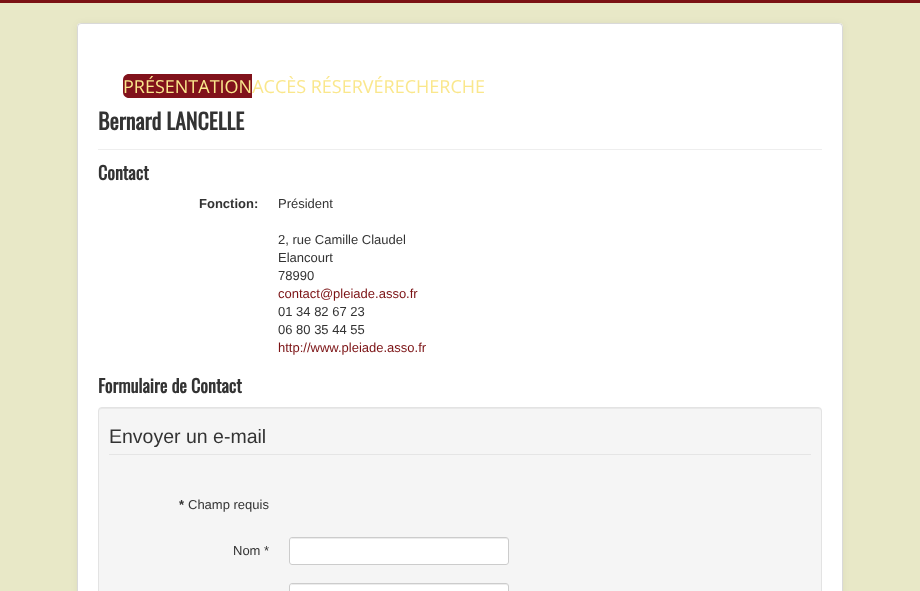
<?xml version="1.0" encoding="UTF-8"?>
<svg xmlns="http://www.w3.org/2000/svg" xmlns:xlink="http://www.w3.org/1999/xlink" width="920" height="591">
  <rect width="100%" height="100%" fill="#e8e8c7" />
  <rect width="920" height="3" fill="#7b1214" />
  <rect x="77" y="23" width="766" height="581" rx="4" fill="#000000" fill-opacity="0.05" filter="blur(3px)" />
  <rect x="77" y="23" width="766" height="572" rx="4" fill="#ffffff" />
  <rect x="77.5" y="23.5" width="765" height="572" rx="3.5" fill="none" stroke="#000000" stroke-opacity="0.15" />
  <path d="M 129 74 h 123 v 24 h -123 c -3.5 0 -6 -2.5 -6 -6 v -12 c 0 -3.5 2.5 -6 6 -6 z" fill="#81121b" />
  <rect x="98" y="149" width="724" height="1" fill="#eeeeee" />
  <rect x="98" y="407" width="724" height="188" rx="4" fill="#f5f5f5" />
  <path d="M 102 409 h 716 c 2 0 3 1 3 3 c 0 -2 -1 -4 -3 -4 h -716 c -2 0 -3 2 -3 4 c 0 -2 1 -3 3 -3 z" fill="#e9e9e9" />
  <rect x="98.5" y="407.5" width="723" height="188" rx="3.5" fill="none" stroke="#e3e3e3" />
  <rect x="109" y="454" width="702" height="1" fill="#e5e5e5" />
  <rect x="289" y="537" width="220" height="28" rx="3" fill="#ffffff" />
  <path d="M 292 539 h 214 c 1 0 2 1 2 2 c 0 -1 0 -3 -2 -3 h -214 l -1 1 l -1 2 c 0 -1 1 -2 2 -2 z" fill="#ececec" />
  <rect x="289.5" y="537.5" width="219" height="27" rx="2.5" fill="none" stroke="#cccccc" />
  <rect x="289" y="583" width="220" height="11" rx="3" fill="#ffffff" />
  <path d="M 292 585 h 214 c 1 0 2 1 2 2 c 0 -1 0 -3 -2 -3 h -214 l -1 1 l -1 2 c 0 -1 1 -2 2 -2 z" fill="#ececec" />
  <rect x="289.5" y="583.5" width="219" height="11" rx="2.5" fill="none" stroke="#cccccc" />
  <text x="123" y="93" style="font-family: Open Sans; font-size: 18px; fill: #fae78c">PRÉSENTATIONACCÈS RÉSERVÉRECHERCHE</text>
  <text x="98" y="130" style="font-family: Oswald; font-size: 22px; font-weight: bold; fill: #333333">Bernard LANCELLE</text>
  <text x="98" y="180" style="font-family: Oswald; font-size: 18px; font-weight: bold; fill: #333333">Contact</text>
  <text x="199" y="208" style="font-family: Liberation Sans; font-size: 13px; font-weight: bold; fill: #333333">Fonction:</text>
  <text x="278" y="208" style="font-family: Liberation Sans; font-size: 13px; fill: #333333">Président</text>
  <text x="278" y="244" style="font-family: Liberation Sans; font-size: 13px; fill: #333333">2, rue Camille Claudel</text>
  <text x="278" y="262" style="font-family: Liberation Sans; font-size: 13px; fill: #333333">Elancourt</text>
  <text x="278" y="280" style="font-family: Liberation Sans; font-size: 13px; fill: #333333">78990</text>
  <text x="278" y="298" style="font-family: Liberation Sans; font-size: 13px; fill: #7b1214">contact@pleiade.asso.fr</text>
  <text x="278" y="316" style="font-family: Liberation Sans; font-size: 13px; fill: #333333">01 34 82 67 23</text>
  <text x="278" y="334" style="font-family: Liberation Sans; font-size: 13px; fill: #333333">06 80 35 44 55</text>
  <text x="278" y="352" style="font-family: Liberation Sans; font-size: 13px; fill: #7b1214">http://www.pleiade.asso.fr</text>
  <text x="98" y="393" style="font-family: Oswald; font-size: 18px; font-weight: bold; fill: #333333">Formulaire de Contact</text>
  <text x="109" y="443" style="font-family: Liberation Sans; font-size: 19.5px; fill: #333333">Envoyer un e-mail</text>
  <text x="179" y="509" style="font-family: Liberation Sans; font-size: 13px; font-weight: bold; fill: #333333">*</text>
  <text x="188" y="509" style="font-family: Liberation Sans; font-size: 13px; fill: #333333">Champ requis</text>
  <text x="233" y="555" style="font-family: Liberation Sans; font-size: 13px; fill: #333333">Nom *</text>
</svg>
